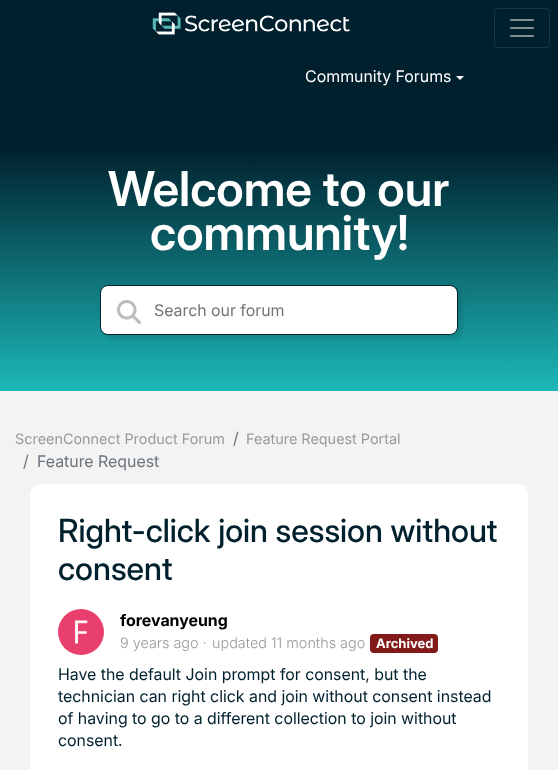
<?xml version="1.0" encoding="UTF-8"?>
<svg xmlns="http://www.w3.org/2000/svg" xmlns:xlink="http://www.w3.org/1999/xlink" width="558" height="770">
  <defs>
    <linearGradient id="g1" gradientUnits="userSpaceOnUse" x1="279" y1="42" x2="279" y2="391"><stop offset="0.3" stop-color="#00202d" /><stop offset="1" stop-color="#1cb8b8" /></linearGradient>
  </defs>
  <rect width="100%" height="100%" fill="#f3f3f3" />
  <rect width="558" height="111" fill="#00202e" />
  <image x="152" y="12" width="198" height="23" xlink:href="image1.png" />
  <rect x="494.5" y="8.5" width="55" height="39" rx="3.5" fill="none" stroke="#1a3643" />
  <image x="510" y="19" width="24" height="18" xlink:href="image2.png" />
  <path d="M 456 76 h 8 l -4 4 z" fill="#ffffff" />
  <rect y="111" width="558" height="280" fill="url(#g1)" />
  <rect x="104" y="289" width="358" height="50" rx="8" fill="#000000" fill-opacity="0.1" filter="blur(2px)" />
  <rect x="100.5" y="285.5" width="357" height="49" rx="7.5" fill="#ffffff" stroke="#00202e" />
  <image x="117" y="300" width="24" height="24" xlink:href="image3.png" />
  <rect x="30" y="484" width="498" height="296" rx="10" fill="#ffffff" />
  <circle cx="81" cy="632" r="23" fill="#e83f6e" />
  <image x="74" y="620" width="14" height="24" xlink:href="image4.png" />
  <rect x="370" y="634" width="68" height="19" rx="4" fill="#821a1a" />
  <text x="305" y="82" style="font-family: 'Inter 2'; font-size: 16px; fill: #ffffff">Community Forums</text>
  <text x="108" y="206" style="font-family: Inter; font-size: 48px; font-weight: 600; fill: #ffffff">Welcome to our</text>
  <text x="150" y="250" style="font-family: Inter; font-size: 48px; font-weight: 600; fill: #ffffff">community!</text>
  <text x="154" y="316" style="font-family: 'Inter 2'; font-size: 16px; fill: #757575">Search our forum</text>
  <text x="15" y="444" style="font-family: Inter; font-size: 14.4px; fill: #999999">ScreenConnect Product Forum</text>
  <text x="233" y="444" style="font-family: 'Inter 2'; font-size: 16px; fill: #6c757d">/</text>
  <text x="246" y="444" style="font-family: Inter; font-size: 14.4px; fill: #999999">Feature Request Portal</text>
  <text x="23" y="467" style="font-family: 'Inter 2'; font-size: 16px; fill: #6c757d">/</text>
  <text x="37" y="467" style="font-family: 'Inter 2'; font-size: 16px; fill: #6c757d">Feature Request</text>
  <text x="58" y="542" style="font-family: Inter; font-size: 32px; font-weight: 500; fill: #00202e">Right-click join session without</text>
  <text x="58" y="580" style="font-family: Inter; font-size: 32px; font-weight: 500; fill: #00202e">consent</text>
  <text x="120" y="626" style="font-family: Inter; font-size: 16px; font-weight: bold; fill: #000000">forevanyeung</text>
  <text x="120" y="648" style="font-family: Inter; font-size: 14.4px; font-weight: 300; fill: #999999">9 years ago ·</text>
  <text x="212" y="648" style="font-family: Inter; font-size: 14.4px; font-weight: 300; fill: #999999">updated 11 months ago</text>
  <text x="376" y="648" style="font-family: 'Inter 2'; font-size: 13px; font-weight: bold; fill: #ffffff">Archived</text>
  <text x="58" y="680" style="font-family: 'Inter 2'; font-size: 16px; fill: #00202e">Have the default Join prompt for consent, but the</text>
  <text x="58" y="702" style="font-family: 'Inter 2'; font-size: 16px; fill: #00202e">technician can right click and join without consent instead</text>
  <text x="58" y="724" style="font-family: 'Inter 2'; font-size: 16px; fill: #00202e">of having to go to a different collection to join without</text>
  <text x="58" y="746" style="font-family: 'Inter 2'; font-size: 16px; fill: #00202e">consent.</text>
</svg>
